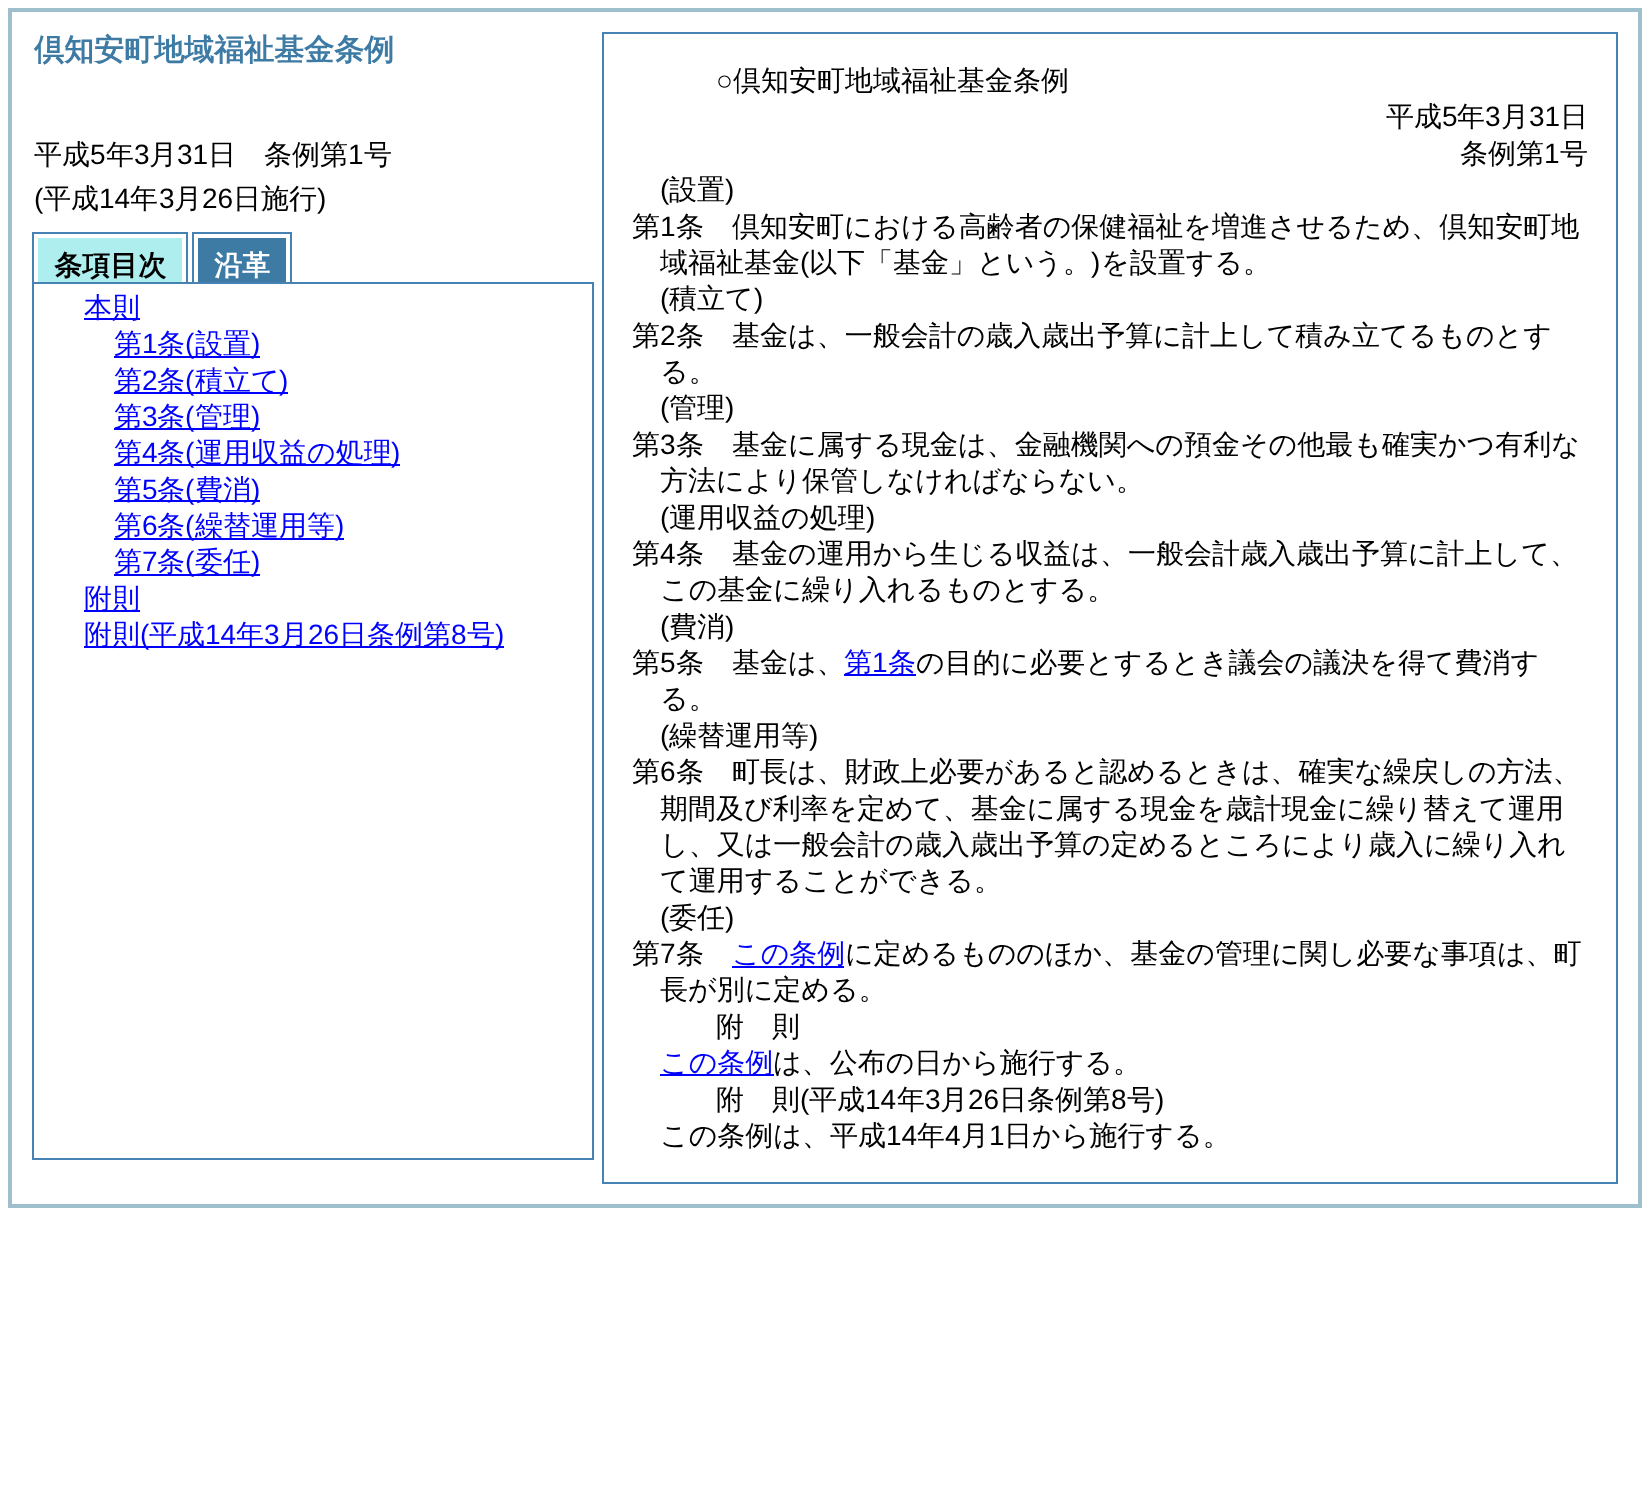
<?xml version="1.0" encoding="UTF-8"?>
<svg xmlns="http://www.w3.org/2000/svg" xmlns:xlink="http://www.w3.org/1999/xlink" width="1649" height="1500">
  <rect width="100%" height="100%" fill="#ffffff" />
  <rect x="10" y="10" width="1630" height="1196" fill="none" stroke="#a0bfcc" stroke-width="4" />
  <rect x="32" y="232" width="156" height="2" fill="#4682b4" />
  <rect x="186" y="232" width="2" height="52" fill="#4682b4" />
  <rect x="32" y="232" width="2" height="52" fill="#4682b4" />
  <rect x="38" y="238" width="144" height="44" fill="#afeeee" />
  <rect x="192" y="232" width="100" height="2" fill="#4682b4" />
  <rect x="290" y="232" width="2" height="52" fill="#4682b4" />
  <rect x="192" y="232" width="2" height="52" fill="#4682b4" />
  <rect x="198" y="238" width="88" height="44" fill="#3d7aa4" />
  <rect x="33" y="283" width="560" height="876" fill="none" stroke="#4682b4" stroke-width="2" />
  <rect x="84" y="318" width="56" height="2" fill="#0000ff" />
  <rect x="114" y="356" width="146" height="2" fill="#0000ff" />
  <rect x="114" y="392" width="174" height="2" fill="#0000ff" />
  <rect x="114" y="428" width="146" height="2" fill="#0000ff" />
  <rect x="114" y="464" width="286" height="2" fill="#0000ff" />
  <rect x="114" y="500" width="146" height="2" fill="#0000ff" />
  <rect x="114" y="538" width="230" height="2" fill="#0000ff" />
  <rect x="114" y="574" width="146" height="2" fill="#0000ff" />
  <rect x="84" y="610" width="56" height="2" fill="#0000ff" />
  <rect x="84" y="646" width="420" height="2" fill="#0000ff" />
  <rect x="603" y="33" width="1014" height="1150" fill="none" stroke="#4682b4" stroke-width="2" />
  <rect x="844" y="674" width="72" height="2" fill="#0000ff" />
  <rect x="732" y="966" width="112" height="2" fill="#0000ff" />
  <rect x="660" y="1074" width="114" height="2" fill="#0000ff" />
  <text x="34" y="60" style="font-family: WenQuanYi Zen Hei; font-size: 30px; font-weight: bold; fill: #3d7aa4">倶知安町地域福祉基金条例</text>
  <text x="34" y="164" style="font-family: WenQuanYi Zen Hei; font-size: 28px; font-weight: 500; fill: #000000">平成</text>
  <text x="90" y="164" style="font-family: Liberation Sans; font-size: 28px; fill: #000000">5</text>
  <text x="106" y="164" style="font-family: WenQuanYi Zen Hei; font-size: 28px; font-weight: 500; fill: #000000">年</text>
  <text x="134" y="164" style="font-family: Liberation Sans; font-size: 28px; fill: #000000">3</text>
  <text x="149" y="164" style="font-family: WenQuanYi Zen Hei; font-size: 28px; font-weight: 500; fill: #000000">月</text>
  <text x="177" y="164" style="font-family: Liberation Sans; font-size: 28px; fill: #000000">31</text>
  <text x="208" y="164" style="font-family: WenQuanYi Zen Hei; font-size: 28px; font-weight: 500; fill: #000000">日　条例第</text>
  <text x="348" y="164" style="font-family: Liberation Sans; font-size: 28px; fill: #000000">1</text>
  <text x="364" y="164" style="font-family: WenQuanYi Zen Hei; font-size: 28px; font-weight: 500; fill: #000000">号</text>
  <text x="34" y="208" style="font-family: Liberation Sans; font-size: 28px; fill: #000000">(</text>
  <text x="43" y="208" style="font-family: WenQuanYi Zen Hei; font-size: 28px; font-weight: 500; fill: #000000">平成</text>
  <text x="99" y="208" style="font-family: Liberation Sans; font-size: 28px; fill: #000000">14</text>
  <text x="130" y="208" style="font-family: WenQuanYi Zen Hei; font-size: 28px; font-weight: 500; fill: #000000">年</text>
  <text x="159" y="208" style="font-family: Liberation Sans; font-size: 28px; fill: #000000">3</text>
  <text x="174" y="208" style="font-family: WenQuanYi Zen Hei; font-size: 28px; font-weight: 500; fill: #000000">月</text>
  <text x="202" y="208" style="font-family: Liberation Sans; font-size: 28px; fill: #000000">26</text>
  <text x="233" y="208" style="font-family: WenQuanYi Zen Hei; font-size: 28px; font-weight: 500; fill: #000000">日施行</text>
  <text x="317" y="208" style="font-family: Liberation Sans; font-size: 28px; fill: #000000">)</text>
  <text x="54" y="275" style="font-family: WenQuanYi Zen Hei; font-size: 28px; font-weight: bold; fill: #000000">条項目次</text>
  <text x="214" y="275" style="font-family: WenQuanYi Zen Hei; font-size: 28px; font-weight: bold; fill: #ffffff">沿革</text>
  <text x="84" y="317" style="font-family: WenQuanYi Zen Hei; font-size: 28px; font-weight: 500; fill: #0000ff">本則</text>
  <text x="114" y="353" style="font-family: WenQuanYi Zen Hei; font-size: 28px; font-weight: 500; fill: #0000ff">第</text>
  <text x="142" y="353" style="font-family: Liberation Sans; font-size: 28px; fill: #0000ff">1</text>
  <text x="157" y="353" style="font-family: WenQuanYi Zen Hei; font-size: 28px; font-weight: 500; fill: #0000ff">条</text>
  <text x="185" y="353" style="font-family: Liberation Sans; font-size: 28px; fill: #0000ff">(</text>
  <text x="195" y="353" style="font-family: WenQuanYi Zen Hei; font-size: 28px; font-weight: 500; fill: #0000ff">設置</text>
  <text x="251" y="353" style="font-family: Liberation Sans; font-size: 28px; fill: #0000ff">)</text>
  <text x="114" y="390" style="font-family: WenQuanYi Zen Hei; font-size: 28px; font-weight: 500; fill: #0000ff">第</text>
  <text x="142" y="390" style="font-family: Liberation Sans; font-size: 28px; fill: #0000ff">2</text>
  <text x="157" y="390" style="font-family: WenQuanYi Zen Hei; font-size: 28px; font-weight: 500; fill: #0000ff">条</text>
  <text x="185" y="390" style="font-family: Liberation Sans; font-size: 28px; fill: #0000ff">(</text>
  <text x="195" y="390" style="font-family: WenQuanYi Zen Hei; font-size: 28px; font-weight: 500; fill: #0000ff">積立て</text>
  <text x="279" y="390" style="font-family: Liberation Sans; font-size: 28px; fill: #0000ff">)</text>
  <text x="114" y="426" style="font-family: WenQuanYi Zen Hei; font-size: 28px; font-weight: 500; fill: #0000ff">第</text>
  <text x="142" y="426" style="font-family: Liberation Sans; font-size: 28px; fill: #0000ff">3</text>
  <text x="157" y="426" style="font-family: WenQuanYi Zen Hei; font-size: 28px; font-weight: 500; fill: #0000ff">条</text>
  <text x="185" y="426" style="font-family: Liberation Sans; font-size: 28px; fill: #0000ff">(</text>
  <text x="195" y="426" style="font-family: WenQuanYi Zen Hei; font-size: 28px; font-weight: 500; fill: #0000ff">管理</text>
  <text x="251" y="426" style="font-family: Liberation Sans; font-size: 28px; fill: #0000ff">)</text>
  <text x="114" y="462" style="font-family: WenQuanYi Zen Hei; font-size: 28px; font-weight: 500; fill: #0000ff">第</text>
  <text x="142" y="462" style="font-family: Liberation Sans; font-size: 28px; fill: #0000ff">4</text>
  <text x="157" y="462" style="font-family: WenQuanYi Zen Hei; font-size: 28px; font-weight: 500; fill: #0000ff">条</text>
  <text x="185" y="462" style="font-family: Liberation Sans; font-size: 28px; fill: #0000ff">(</text>
  <text x="195" y="462" style="font-family: WenQuanYi Zen Hei; font-size: 28px; font-weight: 500; fill: #0000ff">運用収益の処理</text>
  <text x="391" y="462" style="font-family: Liberation Sans; font-size: 28px; fill: #0000ff">)</text>
  <text x="114" y="499" style="font-family: WenQuanYi Zen Hei; font-size: 28px; font-weight: 500; fill: #0000ff">第</text>
  <text x="142" y="499" style="font-family: Liberation Sans; font-size: 28px; fill: #0000ff">5</text>
  <text x="157" y="499" style="font-family: WenQuanYi Zen Hei; font-size: 28px; font-weight: 500; fill: #0000ff">条</text>
  <text x="185" y="499" style="font-family: Liberation Sans; font-size: 28px; fill: #0000ff">(</text>
  <text x="195" y="499" style="font-family: WenQuanYi Zen Hei; font-size: 28px; font-weight: 500; fill: #0000ff">費消</text>
  <text x="251" y="499" style="font-family: Liberation Sans; font-size: 28px; fill: #0000ff">)</text>
  <text x="114" y="535" style="font-family: WenQuanYi Zen Hei; font-size: 28px; font-weight: 500; fill: #0000ff">第</text>
  <text x="142" y="535" style="font-family: Liberation Sans; font-size: 28px; fill: #0000ff">6</text>
  <text x="157" y="535" style="font-family: WenQuanYi Zen Hei; font-size: 28px; font-weight: 500; fill: #0000ff">条</text>
  <text x="185" y="535" style="font-family: Liberation Sans; font-size: 28px; fill: #0000ff">(</text>
  <text x="195" y="535" style="font-family: WenQuanYi Zen Hei; font-size: 28px; font-weight: 500; fill: #0000ff">繰替運用等</text>
  <text x="335" y="535" style="font-family: Liberation Sans; font-size: 28px; fill: #0000ff">)</text>
  <text x="114" y="571" style="font-family: WenQuanYi Zen Hei; font-size: 28px; font-weight: 500; fill: #0000ff">第</text>
  <text x="142" y="571" style="font-family: Liberation Sans; font-size: 28px; fill: #0000ff">7</text>
  <text x="157" y="571" style="font-family: WenQuanYi Zen Hei; font-size: 28px; font-weight: 500; fill: #0000ff">条</text>
  <text x="185" y="571" style="font-family: Liberation Sans; font-size: 28px; fill: #0000ff">(</text>
  <text x="195" y="571" style="font-family: WenQuanYi Zen Hei; font-size: 28px; font-weight: 500; fill: #0000ff">委任</text>
  <text x="251" y="571" style="font-family: Liberation Sans; font-size: 28px; fill: #0000ff">)</text>
  <text x="84" y="608" style="font-family: WenQuanYi Zen Hei; font-size: 28px; font-weight: 500; fill: #0000ff">附則</text>
  <text x="84" y="644" style="font-family: WenQuanYi Zen Hei; font-size: 28px; font-weight: 500; fill: #0000ff">附則</text>
  <text x="140" y="644" style="font-family: Liberation Sans; font-size: 28px; fill: #0000ff">(</text>
  <text x="149" y="644" style="font-family: WenQuanYi Zen Hei; font-size: 28px; font-weight: 500; fill: #0000ff">平成</text>
  <text x="205" y="644" style="font-family: Liberation Sans; font-size: 28px; fill: #0000ff">14</text>
  <text x="236" y="644" style="font-family: WenQuanYi Zen Hei; font-size: 28px; font-weight: 500; fill: #0000ff">年</text>
  <text x="264" y="644" style="font-family: Liberation Sans; font-size: 28px; fill: #0000ff">3</text>
  <text x="280" y="644" style="font-family: WenQuanYi Zen Hei; font-size: 28px; font-weight: 500; fill: #0000ff">月</text>
  <text x="308" y="644" style="font-family: Liberation Sans; font-size: 28px; fill: #0000ff">26</text>
  <text x="339" y="644" style="font-family: WenQuanYi Zen Hei; font-size: 28px; font-weight: 500; fill: #0000ff">日条例第</text>
  <text x="451" y="644" style="font-family: Liberation Sans; font-size: 28px; fill: #0000ff">8</text>
  <text x="467" y="644" style="font-family: WenQuanYi Zen Hei; font-size: 28px; font-weight: 500; fill: #0000ff">号</text>
  <text x="495" y="644" style="font-family: Liberation Sans; font-size: 28px; fill: #0000ff">)</text>
  <text x="716" y="90" style="font-family: Liberation Sans; font-size: 28px; fill: #000000">○</text>
  <text x="733" y="90" style="font-family: WenQuanYi Zen Hei; font-size: 28px; font-weight: 500; fill: #000000">倶知安町地域福祉基金条例</text>
  <text x="1386" y="126" style="font-family: WenQuanYi Zen Hei; font-size: 28px; font-weight: 500; fill: #000000">平成</text>
  <text x="1442" y="126" style="font-family: Liberation Sans; font-size: 28px; fill: #000000">5</text>
  <text x="1457" y="126" style="font-family: WenQuanYi Zen Hei; font-size: 28px; font-weight: 500; fill: #000000">年</text>
  <text x="1485" y="126" style="font-family: Liberation Sans; font-size: 28px; fill: #000000">3</text>
  <text x="1501" y="126" style="font-family: WenQuanYi Zen Hei; font-size: 28px; font-weight: 500; fill: #000000">月</text>
  <text x="1529" y="126" style="font-family: Liberation Sans; font-size: 28px; fill: #000000">31</text>
  <text x="1560" y="126" style="font-family: WenQuanYi Zen Hei; font-size: 28px; font-weight: 500; fill: #000000">日</text>
  <text x="1460" y="163" style="font-family: WenQuanYi Zen Hei; font-size: 28px; font-weight: 500; fill: #000000">条例第</text>
  <text x="1544" y="163" style="font-family: Liberation Sans; font-size: 28px; fill: #000000">1</text>
  <text x="1560" y="163" style="font-family: WenQuanYi Zen Hei; font-size: 28px; font-weight: 500; fill: #000000">号</text>
  <text x="660" y="199" style="font-family: Liberation Sans; font-size: 28px; fill: #000000">(</text>
  <text x="669" y="199" style="font-family: WenQuanYi Zen Hei; font-size: 28px; font-weight: 500; fill: #000000">設置</text>
  <text x="725" y="199" style="font-family: Liberation Sans; font-size: 28px; fill: #000000">)</text>
  <text x="632" y="236" style="font-family: WenQuanYi Zen Hei; font-size: 28px; font-weight: 500; fill: #000000">第</text>
  <text x="660" y="236" style="font-family: Liberation Sans; font-size: 28px; fill: #000000">1</text>
  <text x="676" y="236" style="font-family: WenQuanYi Zen Hei; font-size: 28px; font-weight: 500; fill: #000000">条</text>
  <text x="732" y="236" style="font-family: WenQuanYi Zen Hei; font-size: 28px; font-weight: 500; fill: #000000">倶知安町における高齢者の保健福祉を増進させるため、倶知安町地</text>
  <text x="660" y="272" style="font-family: WenQuanYi Zen Hei; font-size: 28px; font-weight: 500; fill: #000000">域福祉基金</text>
  <text x="800" y="272" style="font-family: Liberation Sans; font-size: 28px; fill: #000000">(</text>
  <text x="809" y="272" style="font-family: WenQuanYi Zen Hei; font-size: 28px; font-weight: 500; fill: #000000">以下「基金」という。</text>
  <text x="1091" y="272" style="font-family: Liberation Sans; font-size: 28px; fill: #000000">)</text>
  <text x="1101" y="272" style="font-family: WenQuanYi Zen Hei; font-size: 28px; font-weight: 500; fill: #000000">を設置する。</text>
  <text x="660" y="308" style="font-family: Liberation Sans; font-size: 28px; fill: #000000">(</text>
  <text x="669" y="308" style="font-family: WenQuanYi Zen Hei; font-size: 28px; font-weight: 500; fill: #000000">積立て</text>
  <text x="754" y="308" style="font-family: Liberation Sans; font-size: 28px; fill: #000000">)</text>
  <text x="632" y="345" style="font-family: WenQuanYi Zen Hei; font-size: 28px; font-weight: 500; fill: #000000">第</text>
  <text x="660" y="345" style="font-family: Liberation Sans; font-size: 28px; fill: #000000">2</text>
  <text x="676" y="345" style="font-family: WenQuanYi Zen Hei; font-size: 28px; font-weight: 500; fill: #000000">条</text>
  <text x="732" y="345" style="font-family: WenQuanYi Zen Hei; font-size: 28px; font-weight: 500; fill: #000000">基金は、一般会計の歳入歳出予算に計上して積み立てるものとす</text>
  <text x="660" y="381" style="font-family: WenQuanYi Zen Hei; font-size: 28px; font-weight: 500; fill: #000000">る。</text>
  <text x="660" y="417" style="font-family: Liberation Sans; font-size: 28px; fill: #000000">(</text>
  <text x="669" y="417" style="font-family: WenQuanYi Zen Hei; font-size: 28px; font-weight: 500; fill: #000000">管理</text>
  <text x="725" y="417" style="font-family: Liberation Sans; font-size: 28px; fill: #000000">)</text>
  <text x="632" y="454" style="font-family: WenQuanYi Zen Hei; font-size: 28px; font-weight: 500; fill: #000000">第</text>
  <text x="660" y="454" style="font-family: Liberation Sans; font-size: 28px; fill: #000000">3</text>
  <text x="676" y="454" style="font-family: WenQuanYi Zen Hei; font-size: 28px; font-weight: 500; fill: #000000">条</text>
  <text x="732" y="454" style="font-family: WenQuanYi Zen Hei; font-size: 28px; font-weight: 500; fill: #000000">基金に属する現金は、金融機関への預金その他最も確実かつ有利な</text>
  <text x="660" y="490" style="font-family: WenQuanYi Zen Hei; font-size: 28px; font-weight: 500; fill: #000000">方法により保管しなければならない。</text>
  <text x="660" y="527" style="font-family: Liberation Sans; font-size: 28px; fill: #000000">(</text>
  <text x="669" y="527" style="font-family: WenQuanYi Zen Hei; font-size: 28px; font-weight: 500; fill: #000000">運用収益の処理</text>
  <text x="866" y="527" style="font-family: Liberation Sans; font-size: 28px; fill: #000000">)</text>
  <text x="632" y="563" style="font-family: WenQuanYi Zen Hei; font-size: 28px; font-weight: 500; fill: #000000">第</text>
  <text x="660" y="563" style="font-family: Liberation Sans; font-size: 28px; fill: #000000">4</text>
  <text x="676" y="563" style="font-family: WenQuanYi Zen Hei; font-size: 28px; font-weight: 500; fill: #000000">条</text>
  <text x="732" y="563" style="font-family: WenQuanYi Zen Hei; font-size: 28px; font-weight: 500; fill: #000000">基金の運用から生じる収益は、一般会計歳入歳出予算に計上して、</text>
  <text x="660" y="599" style="font-family: WenQuanYi Zen Hei; font-size: 28px; font-weight: 500; fill: #000000">この基金に繰り入れるものとする。</text>
  <text x="660" y="636" style="font-family: Liberation Sans; font-size: 28px; fill: #000000">(</text>
  <text x="669" y="636" style="font-family: WenQuanYi Zen Hei; font-size: 28px; font-weight: 500; fill: #000000">費消</text>
  <text x="725" y="636" style="font-family: Liberation Sans; font-size: 28px; fill: #000000">)</text>
  <text x="632" y="672" style="font-family: WenQuanYi Zen Hei; font-size: 28px; font-weight: 500; fill: #000000">第</text>
  <text x="660" y="672" style="font-family: Liberation Sans; font-size: 28px; fill: #000000">5</text>
  <text x="676" y="672" style="font-family: WenQuanYi Zen Hei; font-size: 28px; font-weight: 500; fill: #000000">条</text>
  <text x="732" y="672" style="font-family: WenQuanYi Zen Hei; font-size: 28px; font-weight: 500; fill: #000000">基金は、</text>
  <text x="844" y="672" style="font-family: WenQuanYi Zen Hei; font-size: 28px; font-weight: 500; fill: #0000ff">第</text>
  <text x="872" y="672" style="font-family: Liberation Sans; font-size: 28px; fill: #0000ff">1</text>
  <text x="888" y="672" style="font-family: WenQuanYi Zen Hei; font-size: 28px; font-weight: 500; fill: #0000ff">条</text>
  <text x="916" y="672" style="font-family: WenQuanYi Zen Hei; font-size: 28px; font-weight: 500; fill: #000000">の目的に必要とするとき議会の議決を得て費消す</text>
  <text x="660" y="708" style="font-family: WenQuanYi Zen Hei; font-size: 28px; font-weight: 500; fill: #000000">る。</text>
  <text x="660" y="745" style="font-family: Liberation Sans; font-size: 28px; fill: #000000">(</text>
  <text x="669" y="745" style="font-family: WenQuanYi Zen Hei; font-size: 28px; font-weight: 500; fill: #000000">繰替運用等</text>
  <text x="809" y="745" style="font-family: Liberation Sans; font-size: 28px; fill: #000000">)</text>
  <text x="632" y="781" style="font-family: WenQuanYi Zen Hei; font-size: 28px; font-weight: 500; fill: #000000">第</text>
  <text x="660" y="781" style="font-family: Liberation Sans; font-size: 28px; fill: #000000">6</text>
  <text x="676" y="781" style="font-family: WenQuanYi Zen Hei; font-size: 28px; font-weight: 500; fill: #000000">条</text>
  <text x="732" y="781" style="font-family: WenQuanYi Zen Hei; font-size: 28px; font-weight: 500; fill: #000000">町長は、財政上必要があると認めるときは、確実な繰戻しの方法、</text>
  <text x="660" y="818" style="font-family: WenQuanYi Zen Hei; font-size: 28px; font-weight: 500; fill: #000000">期間及び利率を定めて、基金に属する現金を歳計現金に繰り替えて運用</text>
  <text x="660" y="854" style="font-family: WenQuanYi Zen Hei; font-size: 28px; font-weight: 500; fill: #000000">し、又は一般会計の歳入歳出予算の定めるところにより歳入に繰り入れ</text>
  <text x="660" y="890" style="font-family: WenQuanYi Zen Hei; font-size: 28px; font-weight: 500; fill: #000000">て運用することができる。</text>
  <text x="660" y="927" style="font-family: Liberation Sans; font-size: 28px; fill: #000000">(</text>
  <text x="669" y="927" style="font-family: WenQuanYi Zen Hei; font-size: 28px; font-weight: 500; fill: #000000">委任</text>
  <text x="725" y="927" style="font-family: Liberation Sans; font-size: 28px; fill: #000000">)</text>
  <text x="632" y="963" style="font-family: WenQuanYi Zen Hei; font-size: 28px; font-weight: 500; fill: #000000">第</text>
  <text x="660" y="963" style="font-family: Liberation Sans; font-size: 28px; fill: #000000">7</text>
  <text x="676" y="963" style="font-family: WenQuanYi Zen Hei; font-size: 28px; font-weight: 500; fill: #000000">条</text>
  <text x="732" y="963" style="font-family: WenQuanYi Zen Hei; font-size: 28px; font-weight: 500; fill: #0000ff">この条例</text>
  <text x="845" y="963" style="font-family: WenQuanYi Zen Hei; font-size: 28px; font-weight: 500; fill: #000000">に定めるもののほか、基金の管理に関し必要な事項は、町</text>
  <text x="660" y="999" style="font-family: WenQuanYi Zen Hei; font-size: 28px; font-weight: 500; fill: #000000">長が別に定める。</text>
  <text x="716" y="1036" style="font-family: WenQuanYi Zen Hei; font-size: 28px; font-weight: 500; letter-spacing: 28px; fill: #000000">附</text>
  <text x="772" y="1036" style="font-family: WenQuanYi Zen Hei; font-size: 28px; font-weight: 500; fill: #000000">則</text>
  <text x="660" y="1072" style="font-family: WenQuanYi Zen Hei; font-size: 28px; font-weight: 500; fill: #0000ff">この条例</text>
  <text x="773" y="1072" style="font-family: WenQuanYi Zen Hei; font-size: 28px; font-weight: 500; fill: #000000">は、公布の日から施行する。</text>
  <text x="716" y="1109" style="font-family: WenQuanYi Zen Hei; font-size: 28px; font-weight: 500; letter-spacing: 28px; fill: #000000">附</text>
  <text x="772" y="1109" style="font-family: WenQuanYi Zen Hei; font-size: 28px; font-weight: 500; fill: #000000">則</text>
  <text x="800" y="1109" style="font-family: Liberation Sans; font-size: 28px; fill: #000000">(</text>
  <text x="809" y="1109" style="font-family: WenQuanYi Zen Hei; font-size: 28px; font-weight: 500; fill: #000000">平成</text>
  <text x="865" y="1109" style="font-family: Liberation Sans; font-size: 28px; fill: #000000">14</text>
  <text x="897" y="1109" style="font-family: WenQuanYi Zen Hei; font-size: 28px; font-weight: 500; fill: #000000">年</text>
  <text x="925" y="1109" style="font-family: Liberation Sans; font-size: 28px; fill: #000000">3</text>
  <text x="940" y="1109" style="font-family: WenQuanYi Zen Hei; font-size: 28px; font-weight: 500; fill: #000000">月</text>
  <text x="968" y="1109" style="font-family: Liberation Sans; font-size: 28px; fill: #000000">26</text>
  <text x="999" y="1109" style="font-family: WenQuanYi Zen Hei; font-size: 28px; font-weight: 500; fill: #000000">日条例第</text>
  <text x="1111" y="1109" style="font-family: Liberation Sans; font-size: 28px; fill: #000000">8</text>
  <text x="1127" y="1109" style="font-family: WenQuanYi Zen Hei; font-size: 28px; font-weight: 500; fill: #000000">号</text>
  <text x="1155" y="1109" style="font-family: Liberation Sans; font-size: 28px; fill: #000000">)</text>
  <text x="660" y="1145" style="font-family: WenQuanYi Zen Hei; font-size: 28px; font-weight: 500; fill: #000000">この条例は、平成</text>
  <text x="886" y="1145" style="font-family: Liberation Sans; font-size: 28px; fill: #000000">14</text>
  <text x="917" y="1145" style="font-family: WenQuanYi Zen Hei; font-size: 28px; font-weight: 500; fill: #000000">年</text>
  <text x="945" y="1145" style="font-family: Liberation Sans; font-size: 28px; fill: #000000">4</text>
  <text x="961" y="1145" style="font-family: WenQuanYi Zen Hei; font-size: 28px; font-weight: 500; fill: #000000">月</text>
  <text x="989" y="1145" style="font-family: Liberation Sans; font-size: 28px; fill: #000000">1</text>
  <text x="1004" y="1145" style="font-family: WenQuanYi Zen Hei; font-size: 28px; font-weight: 500; fill: #000000">日から施行する。</text>
</svg>
